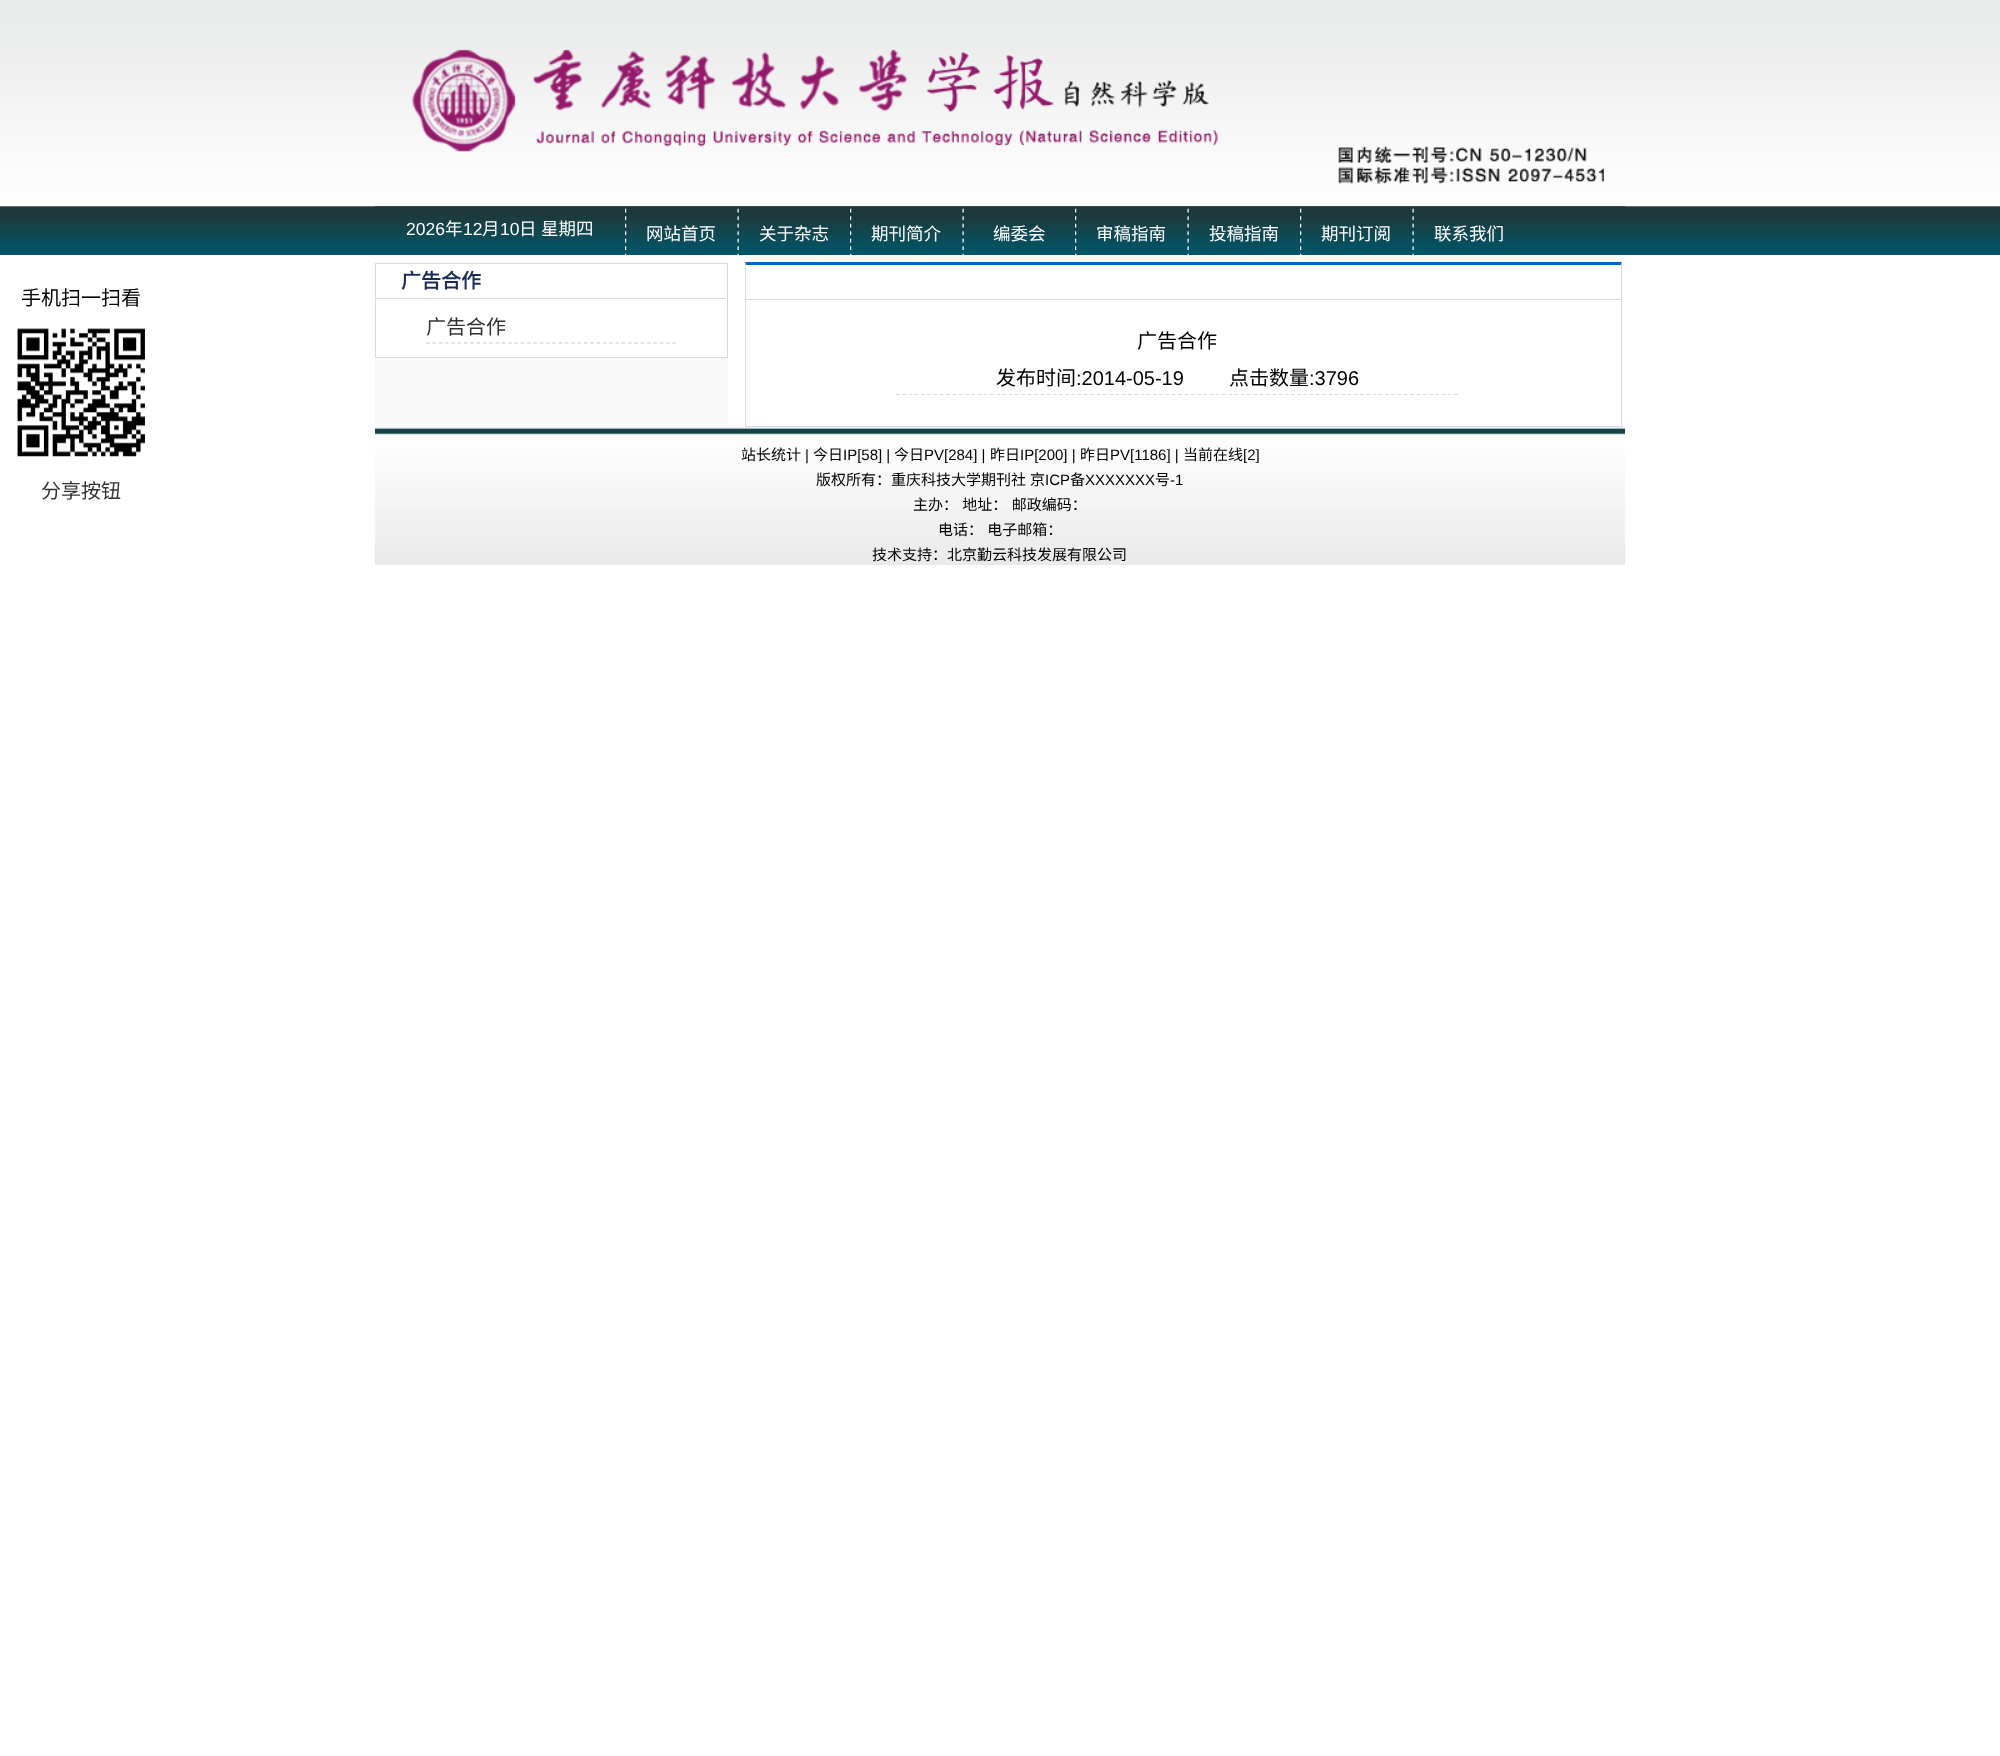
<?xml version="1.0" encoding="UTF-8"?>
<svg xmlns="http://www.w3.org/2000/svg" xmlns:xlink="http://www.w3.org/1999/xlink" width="2000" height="1756">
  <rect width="100%" height="100%" fill="#ffffff" />
  <image x="0" y="0" width="2000" height="255" xlink:href="image1.png" />
  <image x="412" y="49" width="1192" height="135" xlink:href="image2.png" />
  <rect x="375" y="206" width="1250" height="1" fill="#324445" />
  <image x="625" y="208" width="2" height="47" xlink:href="image3.png" />
  <image x="737" y="208" width="2" height="47" xlink:href="image4.png" />
  <image x="850" y="208" width="2" height="47" xlink:href="image5.png" />
  <image x="962" y="208" width="2" height="47" xlink:href="image4.png" />
  <image x="1075" y="208" width="2" height="47" xlink:href="image5.png" />
  <image x="1187" y="208" width="2" height="47" xlink:href="image4.png" />
  <image x="1300" y="208" width="2" height="47" xlink:href="image5.png" />
  <image x="1412" y="208" width="2" height="47" xlink:href="image4.png" />
  <image x="17" y="328" width="128" height="129" xlink:href="image6.png" />
  <rect x="375" y="358" width="353" height="66" fill="#f9f8f8" />
  <rect x="375.5" y="263.5" width="352" height="94" fill="none" stroke="#d3dbe6" />
  <rect x="376" y="298" width="350" height="1" fill="#d3dbe6" />
  <path d="M 426 343 h 250" fill="none" stroke="#cccccc" stroke-width="1.2" stroke-dasharray="3.75 2.56" />
  <path d="M 745 262 h 877 l -1 3 h -875 z" fill="#0066cc" />
  <image x="375" y="427" width="1250" height="138" xlink:href="image7.png" />
  <path d="M 1622 262 v 166 l -1 -2 v -161 z" fill="#d3dbe6" />
  <rect x="745" y="426" width="878" height="1" fill="#d3dbe6" />
  <path d="M 745 428 v -166 l 1 3 v 161 z" fill="#d3dbe6" />
  <rect x="746" y="299" width="875" height="1" fill="#d3dbe6" />
  <path d="M 896 394.5 h 563" fill="none" stroke="#d3dbe6" stroke-width="1.2" stroke-dasharray="3.75 2.52" />
  <text x="406" y="235" style="font-family: Liberation Sans; font-size: 17.5px; fill: #ffffff">2026</text>
  <text x="445" y="235" style="font-family: Noto Sans CJK SC; font-size: 17.5px; fill: #ffffff">年</text>
  <text x="463" y="235" style="font-family: Liberation Sans; font-size: 17.5px; fill: #ffffff">12</text>
  <text x="482" y="235" style="font-family: Noto Sans CJK SC; font-size: 17.5px; fill: #ffffff">月</text>
  <text x="500" y="235" style="font-family: Liberation Sans; font-size: 17.5px; fill: #ffffff">10</text>
  <text x="519" y="235" style="font-family: Noto Sans CJK SC; font-size: 17.5px; fill: #ffffff">日</text>
  <text x="541" y="235" style="font-family: Noto Sans CJK SC; font-size: 17.5px; fill: #ffffff">星期四</text>
  <text x="646" y="240" style="font-family: Noto Sans CJK SC; font-size: 17.5px; fill: #ffffff">网站首页</text>
  <text x="759" y="240" style="font-family: Noto Sans CJK SC; font-size: 17.5px; fill: #ffffff">关于杂志</text>
  <text x="871" y="240" style="font-family: Noto Sans CJK SC; font-size: 17.5px; fill: #ffffff">期刊简介</text>
  <text x="993" y="240" style="font-family: Noto Sans CJK SC; font-size: 17.5px; fill: #ffffff">编委会</text>
  <text x="1096" y="240" style="font-family: Noto Sans CJK SC; font-size: 17.5px; fill: #ffffff">审稿指南</text>
  <text x="1209" y="240" style="font-family: Noto Sans CJK SC; font-size: 17.5px; fill: #ffffff">投稿指南</text>
  <text x="1321" y="240" style="font-family: Noto Sans CJK SC; font-size: 17.5px; fill: #ffffff">期刊订阅</text>
  <text x="1434" y="240" style="font-family: Noto Sans CJK SC; font-size: 17.5px; fill: #ffffff">联系我们</text>
  <text x="21" y="305" style="font-family: Noto Sans CJK SC; font-size: 20px; fill: #000000">手机扫一扫看</text>
  <text x="41" y="498" style="font-family: Noto Sans CJK SC; font-size: 20px; fill: #333333">分享按钮</text>
  <text x="401" y="288" style="font-family: Noto Sans CJK SC; font-size: 20px; font-weight: bold; fill: #1c2c58">广告合作</text>
  <text x="426" y="334" style="font-family: Noto Sans CJK SC; font-size: 20px; fill: #333333">广告合作</text>
  <text x="1137" y="348" style="font-family: Noto Sans CJK SC; font-size: 20px; fill: #000000">广告合作</text>
  <text x="996" y="385" style="font-family: Noto Sans CJK SC; font-size: 20px; fill: #000000">发布时间</text>
  <text x="1076" y="385" style="font-family: Liberation Sans; font-size: 20px; fill: #000000">:2014-05-19</text>
  <text x="1229" y="385" style="font-family: Noto Sans CJK SC; font-size: 20px; fill: #000000">点击数量</text>
  <text x="1309" y="385" style="font-family: Liberation Sans; font-size: 20px; fill: #000000">:3796</text>
  <text x="741" y="460" style="font-family: Noto Sans CJK SC; font-size: 15px; fill: #000000">站长统计</text>
  <text x="805" y="460" style="font-family: Liberation Sans; font-size: 15px; fill: #000000">|</text>
  <text x="813" y="460" style="font-family: Noto Sans CJK SC; font-size: 15px; fill: #000000">今日</text>
  <text x="843" y="460" style="font-family: Liberation Sans; font-size: 15px; fill: #000000">IP[58] |</text>
  <text x="894" y="460" style="font-family: Noto Sans CJK SC; font-size: 15px; fill: #000000">今日</text>
  <text x="924" y="460" style="font-family: Liberation Sans; font-size: 15px; fill: #000000">PV[284] |</text>
  <text x="990" y="460" style="font-family: Noto Sans CJK SC; font-size: 15px; fill: #000000">昨日</text>
  <text x="1020" y="460" style="font-family: Liberation Sans; font-size: 15px; fill: #000000">IP[200] |</text>
  <text x="1080" y="460" style="font-family: Noto Sans CJK SC; font-size: 15px; fill: #000000">昨日</text>
  <text x="1110" y="460" style="font-family: Liberation Sans; font-size: 15px; fill: #000000">PV[1186] |</text>
  <text x="1183" y="460" style="font-family: Noto Sans CJK SC; font-size: 15px; fill: #000000">当前在线</text>
  <text x="1243" y="460" style="font-family: Liberation Sans; font-size: 15px; fill: #000000">[2]</text>
  <text x="816" y="485" style="font-family: Noto Sans CJK SC; font-size: 15px; fill: #000000">版权所有：重庆科技大学期刊社</text>
  <text x="1030" y="485" style="font-family: Noto Sans CJK SC; font-size: 15px; fill: #000000">京</text>
  <text x="1045" y="485" style="font-family: Liberation Sans; font-size: 15px; fill: #000000">ICP</text>
  <text x="1070" y="485" style="font-family: Noto Sans CJK SC; font-size: 15px; fill: #000000">备</text>
  <text x="1085" y="485" style="font-family: Liberation Sans; font-size: 15px; fill: #000000">XXXXXXX</text>
  <text x="1155" y="485" style="font-family: Noto Sans CJK SC; font-size: 15px; fill: #000000">号</text>
  <text x="1170" y="485" style="font-family: Liberation Sans; font-size: 15px; fill: #000000">-1</text>
  <text x="913" y="510" word-spacing="1" style="font-family: Noto Sans CJK SC; font-size: 15px; fill: #000000">主办： 地址： 邮政编码：</text>
  <text x="938" y="535" word-spacing="1" style="font-family: Noto Sans CJK SC; font-size: 15px; fill: #000000">电话： 电子邮箱：</text>
  <text x="872" y="560" style="font-family: Noto Sans CJK SC; font-size: 15px; fill: #000000">技术支持：北京勤云科技发展有限公司</text>
</svg>
